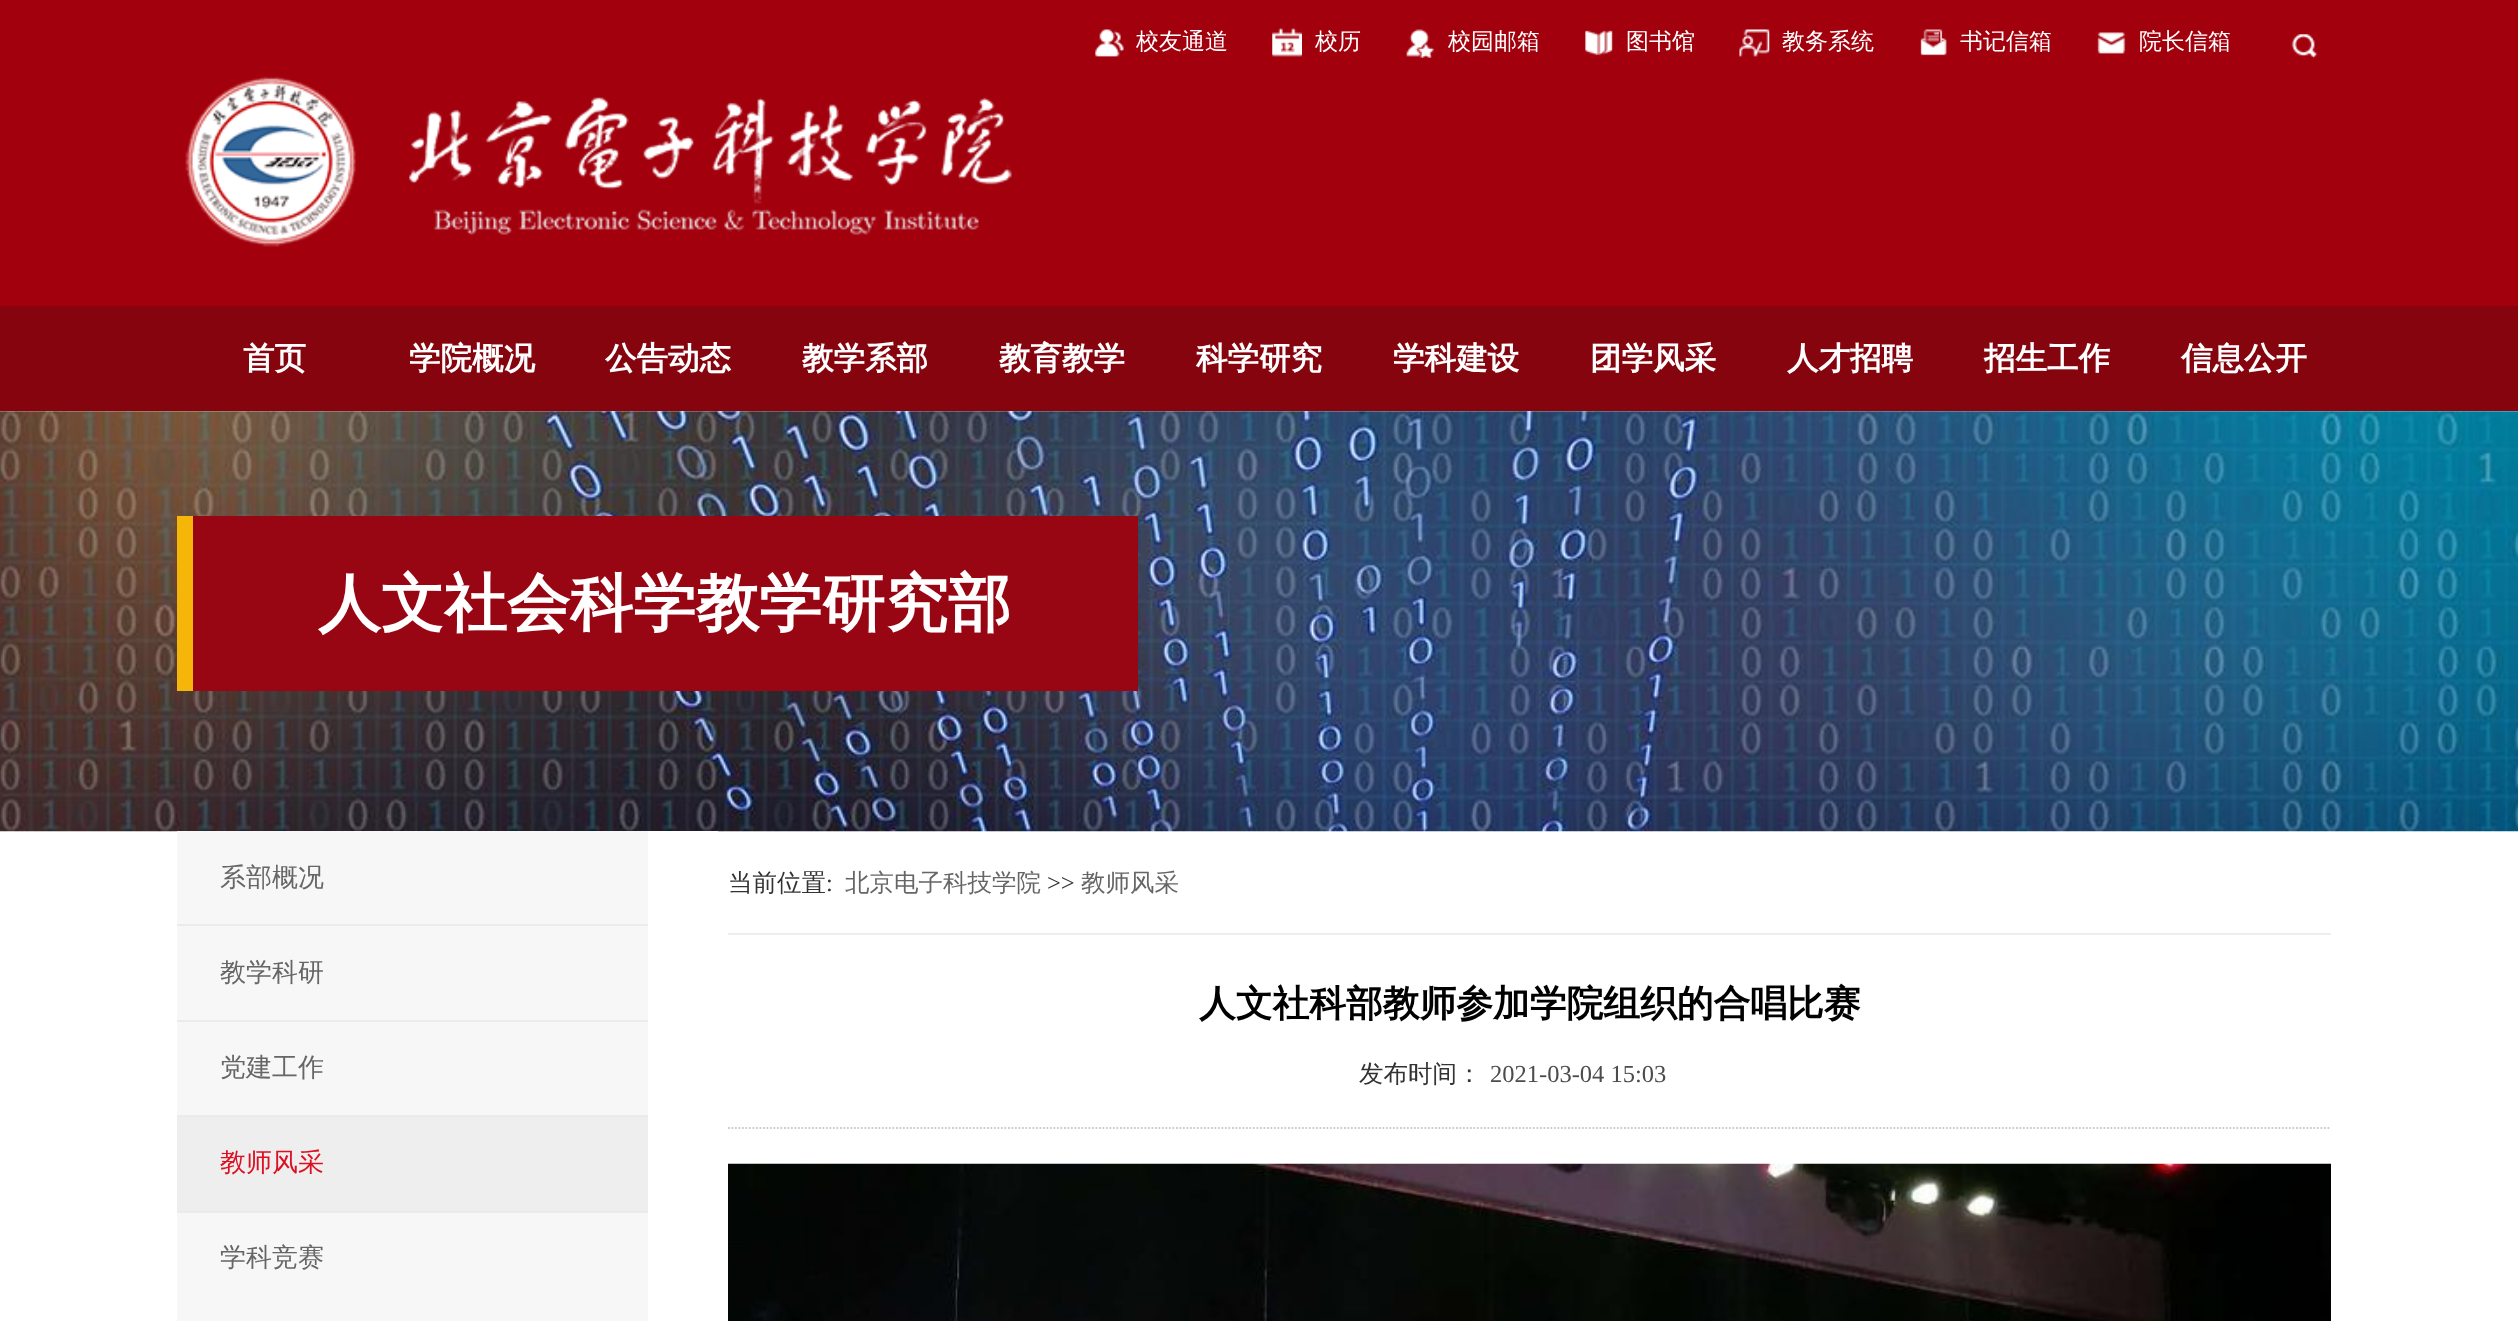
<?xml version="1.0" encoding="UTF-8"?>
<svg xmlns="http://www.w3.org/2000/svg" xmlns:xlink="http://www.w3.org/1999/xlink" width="2518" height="1321">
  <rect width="100%" height="100%" fill="#ffffff" />
  <rect width="2518" height="306" fill="#a3000e" />
  <image x="1095" y="29" width="29" height="28" xlink:href="image1.png" />
  <image x="1272" y="28" width="30" height="29" xlink:href="image2.png" />
  <image x="1406" y="29" width="28" height="29" xlink:href="image3.png" />
  <image x="1585" y="30" width="28" height="26" xlink:href="image4.png" />
  <image x="1739" y="29" width="31" height="28" xlink:href="image5.png" />
  <image x="1920" y="29" width="27" height="27" xlink:href="image6.png" />
  <image x="2097" y="32" width="29" height="22" xlink:href="image7.png" />
  <image x="2291" y="34" width="27" height="25" xlink:href="image8.png" />
  <image x="185" y="76" width="827" height="171" xlink:href="image9.png" />
  <rect y="306" width="2518" height="105" fill="#86040e" />
  <image x="0" y="411" width="2518" height="421" xlink:href="image10.png" />
  <rect x="193" y="516" width="945" height="175" fill="#990613" />
  <rect x="177" y="516" width="16" height="175" fill="#f5b509" />
  <rect x="177" y="831" width="471" height="490" fill="#f7f7f7" />
  <rect x="648" y="831" width="70" height="1" fill="#ffffff" />
  <rect x="177" y="924" width="471" height="2" fill="#ebebeb" />
  <rect x="177" y="1020" width="471" height="2" fill="#ebebeb" />
  <rect x="177" y="1115" width="471" height="2" fill="#ebebeb" />
  <rect x="177" y="1211" width="471" height="2" fill="#ebebeb" />
  <rect x="177" y="1117" width="471" height="94" fill="#eeeeee" />
  <rect x="728" y="933" width="1603" height="2" fill="#eeeeee" />
  <path d="M 728 1128 h 1603" fill="none" stroke="#cccccc" stroke-width="1.8" stroke-dasharray="1.75 1.75" />
  <image x="728" y="1163" width="1603" height="158" xlink:href="image11.png" />
  <text x="1136" y="49" style="font-family: WenQuanYi Zen Hei; font-size: 23px; font-weight: 500; fill: #ffffff">校友通道</text>
  <text x="1315" y="49" style="font-family: WenQuanYi Zen Hei; font-size: 23px; font-weight: 500; fill: #ffffff">校历</text>
  <text x="1448" y="49" style="font-family: WenQuanYi Zen Hei; font-size: 23px; font-weight: 500; fill: #ffffff">校园邮箱</text>
  <text x="1626" y="49" style="font-family: WenQuanYi Zen Hei; font-size: 23px; font-weight: 500; fill: #ffffff">图书馆</text>
  <text x="1782" y="49" style="font-family: WenQuanYi Zen Hei; font-size: 23px; font-weight: 500; fill: #ffffff">教务系统</text>
  <text x="1960" y="49" style="font-family: WenQuanYi Zen Hei; font-size: 23px; font-weight: 500; fill: #ffffff">书记信箱</text>
  <text x="2139" y="49" style="font-family: WenQuanYi Zen Hei; font-size: 23px; font-weight: 500; fill: #ffffff">院长信箱</text>
  <text x="243" y="369" style="font-family: WenQuanYi Zen Hei; font-size: 31.5px; font-weight: bold; fill: #ffffff">首页</text>
  <text x="409" y="369" style="font-family: WenQuanYi Zen Hei; font-size: 31.5px; font-weight: bold; fill: #ffffff">学院概况</text>
  <text x="605" y="369" style="font-family: WenQuanYi Zen Hei; font-size: 31.5px; font-weight: bold; fill: #ffffff">公告动态</text>
  <text x="802" y="369" style="font-family: WenQuanYi Zen Hei; font-size: 31.5px; font-weight: bold; fill: #ffffff">教学系部</text>
  <text x="999" y="369" style="font-family: WenQuanYi Zen Hei; font-size: 31.5px; font-weight: bold; fill: #ffffff">教育教学</text>
  <text x="1196" y="369" style="font-family: WenQuanYi Zen Hei; font-size: 31.5px; font-weight: bold; fill: #ffffff">科学研究</text>
  <text x="1393" y="369" style="font-family: WenQuanYi Zen Hei; font-size: 31.5px; font-weight: bold; fill: #ffffff">学科建设</text>
  <text x="1590" y="369" style="font-family: WenQuanYi Zen Hei; font-size: 31.5px; font-weight: bold; fill: #ffffff">团学风采</text>
  <text x="1787" y="369" style="font-family: WenQuanYi Zen Hei; font-size: 31.5px; font-weight: bold; fill: #ffffff">人才招聘</text>
  <text x="1984" y="369" style="font-family: WenQuanYi Zen Hei; font-size: 31.5px; font-weight: bold; fill: #ffffff">招生工作</text>
  <text x="2181" y="369" style="font-family: WenQuanYi Zen Hei; font-size: 31.5px; font-weight: bold; fill: #ffffff">信息公开</text>
  <text x="318" y="625" style="font-family: WenQuanYi Zen Hei; font-size: 63px; font-weight: bold; fill: #ffffff">人文社会科学教学研究部</text>
  <text x="220" y="886" style="font-family: WenQuanYi Zen Hei; font-size: 26px; font-weight: 500; fill: #666666">系部概况</text>
  <text x="220" y="981" style="font-family: WenQuanYi Zen Hei; font-size: 26px; font-weight: 500; fill: #666666">教学科研</text>
  <text x="220" y="1076" style="font-family: WenQuanYi Zen Hei; font-size: 26px; font-weight: 500; fill: #666666">党建工作</text>
  <text x="220" y="1171" style="font-family: WenQuanYi Zen Hei; font-size: 26px; font-weight: 500; fill: #dc1022">教师风采</text>
  <text x="220" y="1266" style="font-family: WenQuanYi Zen Hei; font-size: 26px; font-weight: 500; fill: #666666">学科竞赛</text>
  <text x="728" y="891" style="font-family: WenQuanYi Zen Hei; font-size: 24.5px; font-weight: 500; fill: #333333">当前位置</text>
  <text x="826" y="891" style="font-family: Liberation Serif; font-size: 24.5px; fill: #333333">:</text>
  <text x="845" y="891" style="font-family: WenQuanYi Zen Hei; font-size: 24.5px; font-weight: 500; fill: #666666">北京电子科技学院</text>
  <text x="1047" y="891" style="font-family: Liberation Serif; font-size: 24.5px; fill: #333333">&gt;&gt;</text>
  <text x="1081" y="891" style="font-family: WenQuanYi Zen Hei; font-size: 24.5px; font-weight: 500; fill: #666666">教师风采</text>
  <text x="1199" y="1016" style="font-family: WenQuanYi Zen Hei; font-size: 36.75px; font-weight: bold; fill: #000000">人文社科部教师参加学院组织的合唱比赛</text>
  <text x="1359" y="1082" style="font-family: WenQuanYi Zen Hei; font-size: 24.5px; font-weight: 500; fill: #333333">发布时间：</text>
  <text x="1490" y="1082" style="font-family: Liberation Serif; font-size: 24.5px; fill: #4c4c4c">2021-03-04 15:03</text>
</svg>
